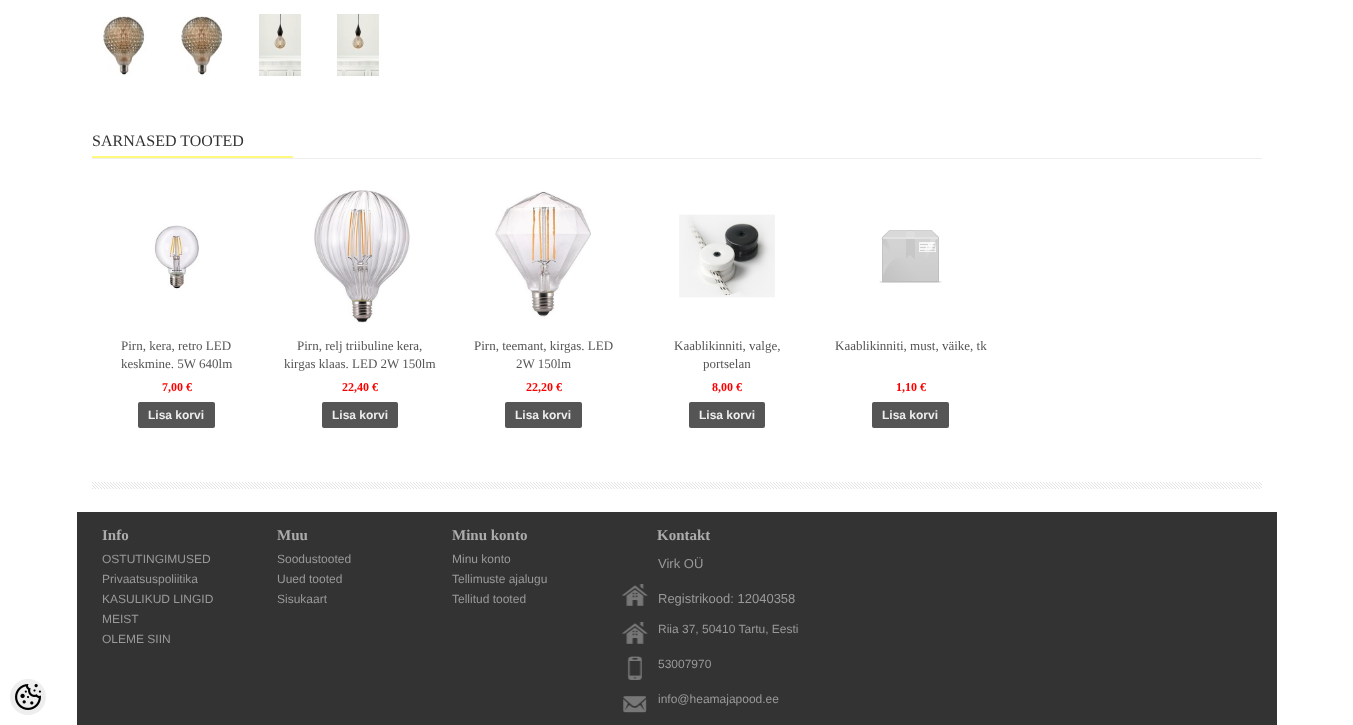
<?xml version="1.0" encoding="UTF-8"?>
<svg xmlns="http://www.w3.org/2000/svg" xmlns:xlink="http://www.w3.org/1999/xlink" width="1353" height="725">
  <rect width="100%" height="100%" fill="#ffffff" />
  <image x="101" y="16" width="46" height="60" xlink:href="image1.png" />
  <image x="179" y="16" width="46" height="60" xlink:href="image1.png" />
  <image x="258" y="14" width="46" height="62" xlink:href="image2.png" />
  <image x="336" y="14" width="46" height="62" xlink:href="image2.png" />
  <rect x="92" y="158" width="1170" height="1" fill="#eeeeee" />
  <rect x="92" y="156" width="201" height="2" fill="#fffa7d" />
  <image x="154" y="225" width="45" height="64" xlink:href="image3.png" />
  <rect x="138" y="402" width="77" height="26" rx="2" fill="#555555" />
  <image x="314" y="190" width="96" height="133" xlink:href="image4.png" />
  <rect x="322" y="402" width="76" height="26" rx="2" fill="#555555" />
  <image x="495" y="191" width="96" height="126" xlink:href="image5.png" />
  <rect x="505" y="402" width="77" height="26" rx="2" fill="#555555" />
  <image x="679" y="214" width="96" height="84" xlink:href="image6.png" />
  <rect x="689" y="402" width="76" height="26" rx="2" fill="#555555" />
  <image x="879" y="230" width="63" height="53" xlink:href="image7.png" />
  <rect x="872" y="402" width="77" height="26" rx="2" fill="#555555" />
  <image x="92" y="482" width="1170" height="7" xlink:href="image8.png" />
  <circle cx="28" cy="697" r="18" fill="#eeeeee" />
  <image x="15" y="684" width="26" height="26" xlink:href="image9.png" />
  <rect x="77" y="512" width="1200" height="213" fill="#333333" />
  <image x="622" y="584" width="26" height="22" xlink:href="image10.png" />
  <image x="622" y="622" width="26" height="22" xlink:href="image10.png" />
  <image x="627" y="656" width="15" height="24" xlink:href="image11.png" />
  <image x="623" y="696" width="24" height="17" xlink:href="image12.png" />
  <text x="92" y="146" style="font-family: Liberation Serif; font-size: 16px; fill: #333333">SARNASED TOOTED</text>
  <text x="121" y="350" style="font-family: Liberation Serif; font-size: 13px; fill: #555555">Pirn, kera, retro LED</text>
  <text x="121" y="368" style="font-family: Liberation Serif; font-size: 13px; fill: #555555">keskmine. 5W 640lm</text>
  <text x="162" y="391" style="font-family: Liberation Serif; font-size: 12px; font-weight: bold; fill: #fc0000">7,00 €</text>
  <text x="148" y="419" style="font-family: Liberation Sans; font-size: 12px; font-weight: bold; fill: #eeeeee">Lisa korvi</text>
  <text x="297" y="350" style="font-family: Liberation Serif; font-size: 13px; fill: #555555">Pirn, relj triibuline kera,</text>
  <text x="284" y="368" style="font-family: Liberation Serif; font-size: 13px; fill: #555555">kirgas klaas. LED 2W 150lm</text>
  <text x="342" y="391" style="font-family: Liberation Serif; font-size: 12px; font-weight: bold; fill: #fc0000">22,40 €</text>
  <text x="332" y="419" style="font-family: Liberation Sans; font-size: 12px; font-weight: bold; fill: #eeeeee">Lisa korvi</text>
  <text x="474" y="350" style="font-family: Liberation Serif; font-size: 13px; fill: #555555">Pirn, teemant, kirgas. LED</text>
  <text x="516" y="368" style="font-family: Liberation Serif; font-size: 13px; fill: #555555">2W 150lm</text>
  <text x="526" y="391" style="font-family: Liberation Serif; font-size: 12px; font-weight: bold; fill: #fc0000">22,20 €</text>
  <text x="515" y="419" style="font-family: Liberation Sans; font-size: 12px; font-weight: bold; fill: #eeeeee">Lisa korvi</text>
  <text x="674" y="350" style="font-family: Liberation Serif; font-size: 13px; fill: #555555">Kaablikinniti, valge,</text>
  <text x="703" y="368" style="font-family: Liberation Serif; font-size: 13px; fill: #555555">portselan</text>
  <text x="712" y="391" style="font-family: Liberation Serif; font-size: 12px; font-weight: bold; fill: #fc0000">8,00 €</text>
  <text x="699" y="419" style="font-family: Liberation Sans; font-size: 12px; font-weight: bold; fill: #eeeeee">Lisa korvi</text>
  <text x="835" y="350" style="font-family: Liberation Serif; font-size: 13px; fill: #555555">Kaablikinniti, must, väike, tk</text>
  <text x="896" y="391" style="font-family: Liberation Serif; font-size: 12px; font-weight: bold; fill: #fc0000">1,10 €</text>
  <text x="882" y="419" style="font-family: Liberation Sans; font-size: 12px; font-weight: bold; fill: #eeeeee">Lisa korvi</text>
  <text x="102" y="540" style="font-family: Liberation Serif; font-size: 15px; font-weight: bold; fill: #acacac">Info</text>
  <text x="102" y="563" style="font-family: Liberation Sans; font-size: 12px; fill: #999999">OSTUTINGIMUSED</text>
  <text x="102" y="583" style="font-family: Liberation Sans; font-size: 12px; fill: #999999">Privaatsuspoliitika</text>
  <text x="102" y="603" style="font-family: Liberation Sans; font-size: 12px; fill: #999999">KASULIKUD LINGID</text>
  <text x="102" y="623" style="font-family: Liberation Sans; font-size: 12px; fill: #999999">MEIST</text>
  <text x="102" y="643" style="font-family: Liberation Sans; font-size: 12px; fill: #999999">OLEME SIIN</text>
  <text x="277" y="540" style="font-family: Liberation Serif; font-size: 15px; font-weight: bold; fill: #acacac">Muu</text>
  <text x="277" y="563" style="font-family: Liberation Sans; font-size: 12px; fill: #999999">Soodustooted</text>
  <text x="277" y="583" style="font-family: Liberation Sans; font-size: 12px; fill: #999999">Uued tooted</text>
  <text x="277" y="603" style="font-family: Liberation Sans; font-size: 12px; fill: #999999">Sisukaart</text>
  <text x="452" y="540" style="font-family: Liberation Serif; font-size: 15px; font-weight: bold; fill: #acacac">Minu konto</text>
  <text x="452" y="563" style="font-family: Liberation Sans; font-size: 12px; fill: #999999">Minu konto</text>
  <text x="452" y="583" style="font-family: Liberation Sans; font-size: 12px; fill: #999999">Tellimuste ajalugu</text>
  <text x="452" y="603" style="font-family: Liberation Sans; font-size: 12px; fill: #999999">Tellitud tooted</text>
  <text x="657" y="540" style="font-family: Liberation Serif; font-size: 15px; font-weight: bold; fill: #acacac">Kontakt</text>
  <text x="658" y="568" style="font-family: Liberation Sans; font-size: 13px; fill: #999999">Virk OÜ</text>
  <text x="658" y="603" style="font-family: Liberation Sans; font-size: 13px; fill: #999999">Registrikood: 12040358</text>
  <text x="658" y="633" style="font-family: Liberation Sans; font-size: 12px; fill: #999999">Riia 37, 50410 Tartu, Eesti</text>
  <text x="658" y="668" style="font-family: Liberation Sans; font-size: 12px; fill: #999999">53007970</text>
  <text x="658" y="703" style="font-family: Liberation Sans; font-size: 12px; fill: #999999">info@heamajapood.ee</text>
</svg>
